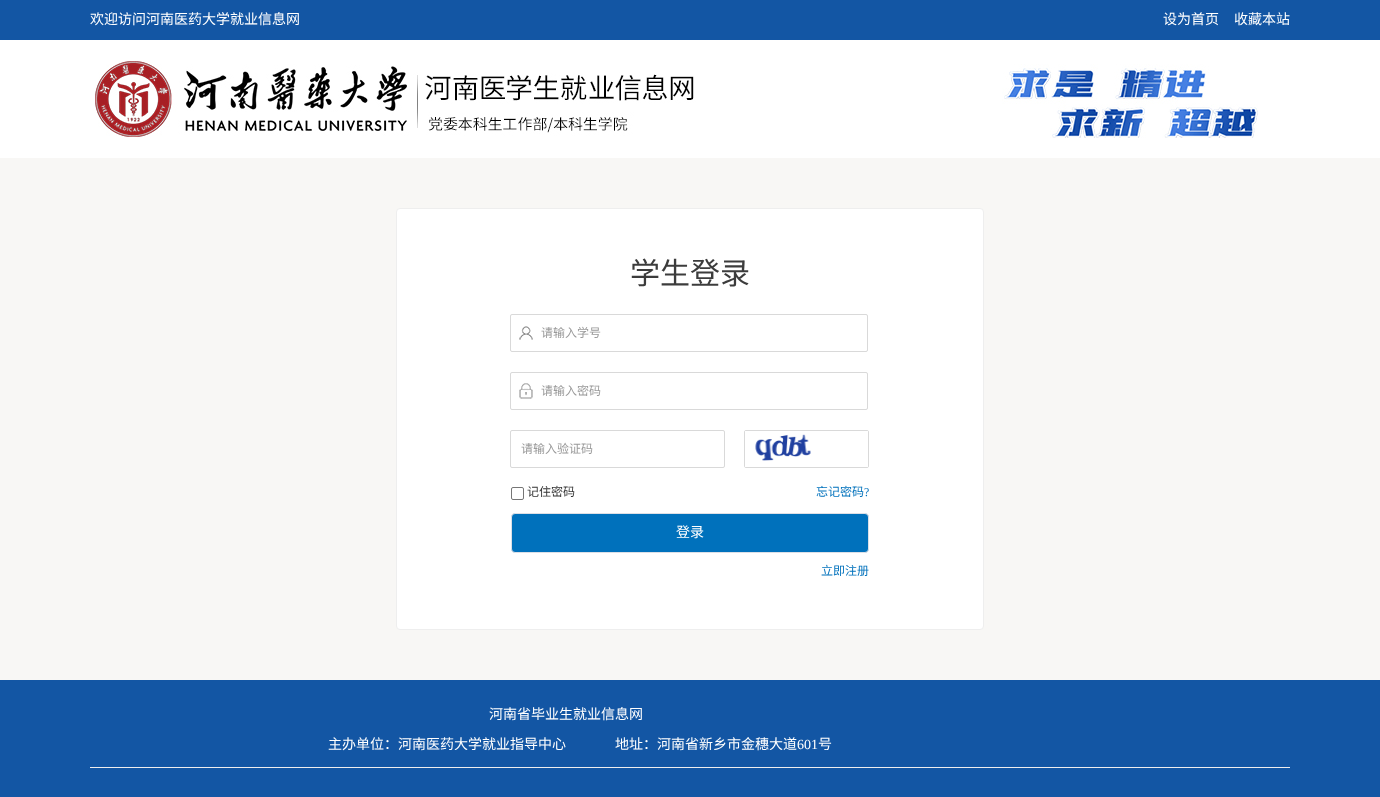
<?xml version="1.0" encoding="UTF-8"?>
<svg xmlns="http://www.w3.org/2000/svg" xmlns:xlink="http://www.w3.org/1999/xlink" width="1380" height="797">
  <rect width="100%" height="100%" fill="#f8f7f5" />
  <rect width="1380" height="40" fill="#1356a4" />
  <rect y="40" width="1380" height="118" fill="#ffffff" />
  <image x="95" y="61" width="1163" height="77" xlink:href="image1.png" />
  <rect x="396.5" y="208.5" width="587" height="421" rx="3.5" fill="#ffffff" stroke="#eeeeee" />
  <image x="519" y="326" width="14" height="14" xlink:href="image2.png" />
  <rect x="510.5" y="314.5" width="357" height="37" rx="1.5" fill="none" stroke="#d9d9d9" />
  <image x="519" y="383" width="14" height="16" xlink:href="image3.png" />
  <rect x="510.5" y="372.5" width="357" height="37" rx="1.5" fill="none" stroke="#d9d9d9" />
  <rect x="510.5" y="430.5" width="214" height="37" rx="1.5" fill="none" stroke="#d9d9d9" />
  <rect x="744.5" y="430.5" width="124" height="37" rx="1.5" fill="none" stroke="#d9d9d9" />
  <image x="745" y="431" width="123" height="36" xlink:href="image4.png" />
  <rect x="511.5" y="487.5" width="12" height="12" rx="1.5" fill="none" stroke="#767676" />
  <rect x="511.5" y="513.5" width="357" height="39" rx="3.5" fill="#0071bc" stroke="#dcdfe6" />
  <rect y="680" width="1380" height="117" fill="#1356a4" />
  <rect x="90" y="767" width="1200" height="1" fill="#eeeeee" />
  <text x="90" y="24" style="font-family: Noto Sans CJK SC; font-size: 14px; fill: #ffffff">欢迎访问河南医药大学就业信息网</text>
  <text x="1163" y="24" style="font-family: Noto Sans CJK SC; font-size: 14px; fill: #ffffff">设为首页</text>
  <text x="1234" y="24" style="font-family: Noto Sans CJK SC; font-size: 14px; fill: #ffffff">收藏本站</text>
  <text x="630" y="284" style="font-family: Noto Sans CJK SC; font-size: 30px; fill: #3c3c3c">学生登录</text>
  <text x="541" y="337" style="font-family: Noto Sans CJK SC; font-size: 12px; fill: #999999">请输入学号</text>
  <text x="541" y="395" style="font-family: Noto Sans CJK SC; font-size: 12px; fill: #999999">请输入密码</text>
  <text x="521" y="453" style="font-family: Noto Sans CJK SC; font-size: 12px; fill: #999999">请输入验证码</text>
  <text x="527" y="496" style="font-family: Noto Sans CJK SC; font-size: 12px; fill: #333333">记住密码</text>
  <text x="816" y="496" style="font-family: Noto Sans CJK SC; font-size: 12px; fill: #0071bc">忘记密码</text>
  <text x="864" y="496" style="font-family: Liberation Serif; font-size: 12px; fill: #0071bc">?</text>
  <text x="676" y="537" style="font-family: Noto Sans CJK SC; font-size: 14px; fill: #ffffff">登录</text>
  <text x="821" y="575" style="font-family: Noto Sans CJK SC; font-size: 12px; fill: #0071bc">立即注册</text>
  <text x="489" y="719" style="font-family: Noto Sans CJK SC; font-size: 14px; fill: #ffffff">河南省毕业生就业信息网</text>
  <text x="328" y="749" style="font-family: Noto Sans CJK SC; font-size: 14px; fill: #ffffff">主办单位：河南医药大学就业指导中心</text>
  <text x="615" y="749" style="font-family: Noto Sans CJK SC; font-size: 14px; fill: #ffffff">地址：河南省新乡市金穗大道</text>
  <text x="797" y="749" style="font-family: Liberation Serif; font-size: 14px; fill: #ffffff">601</text>
  <text x="818" y="749" style="font-family: Noto Sans CJK SC; font-size: 14px; fill: #ffffff">号</text>
</svg>
